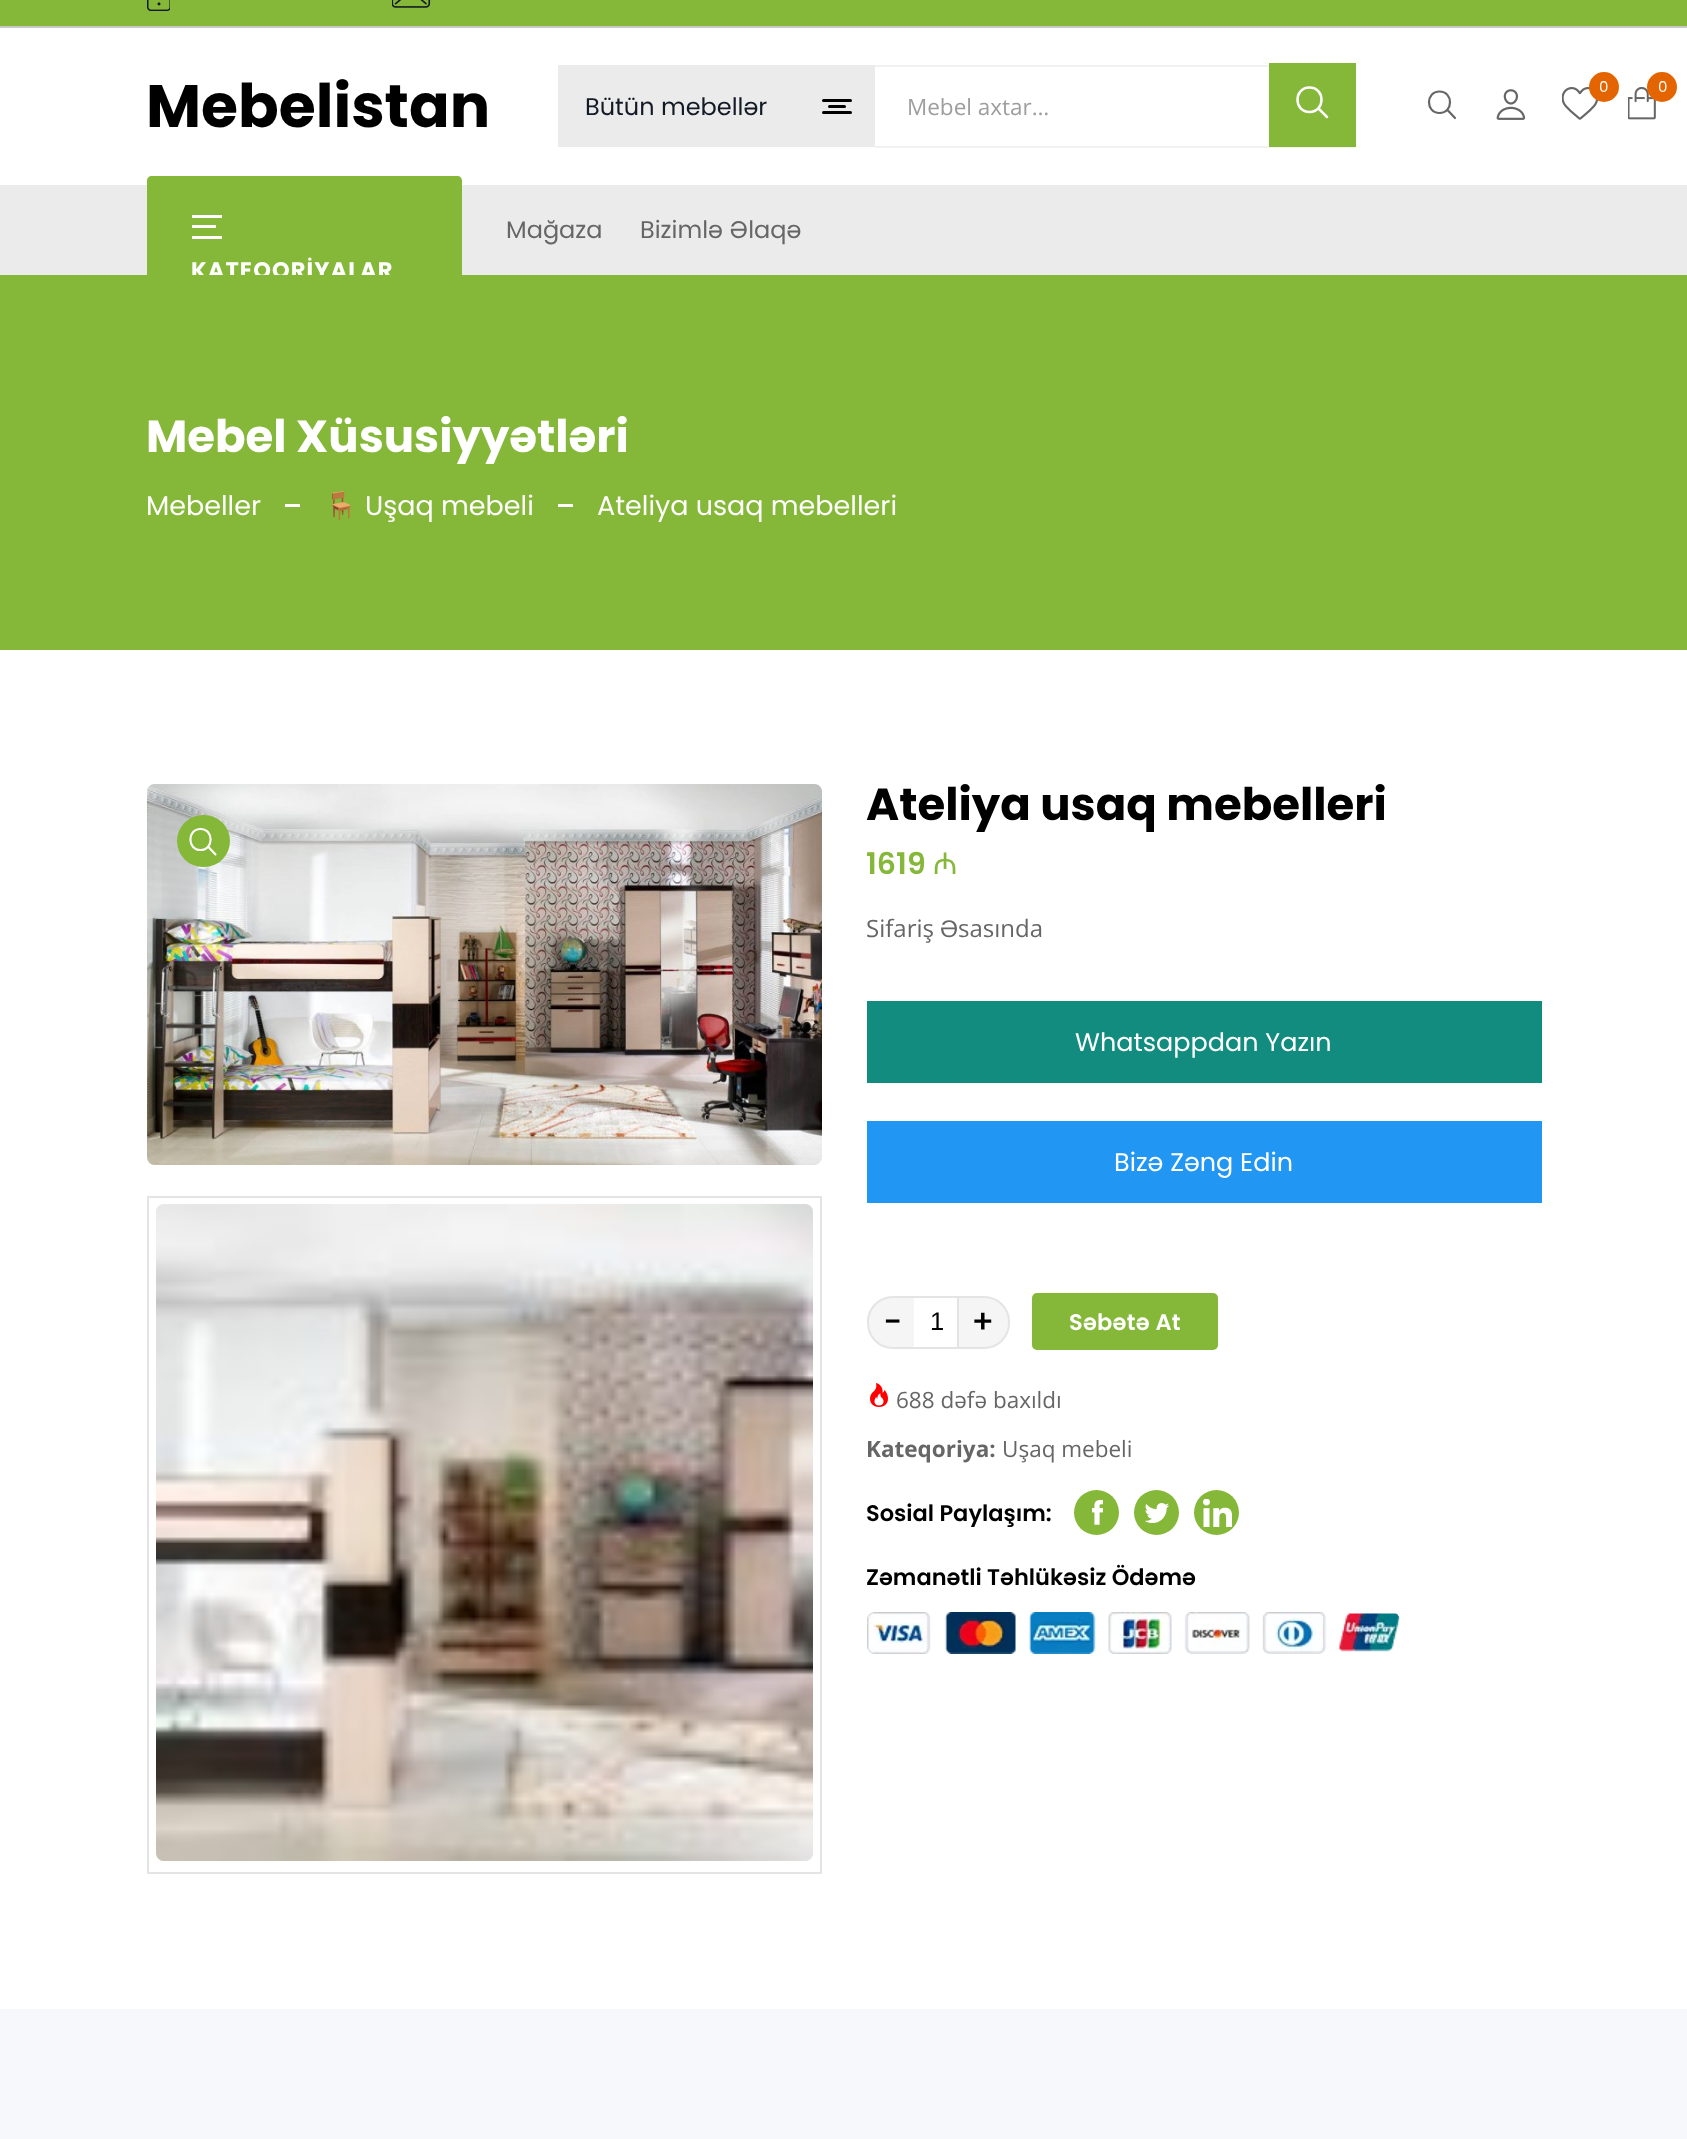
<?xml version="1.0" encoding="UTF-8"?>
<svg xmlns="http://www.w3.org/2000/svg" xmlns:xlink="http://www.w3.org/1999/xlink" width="1687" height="2139">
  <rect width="100%" height="100%" fill="#ffffff" />
  <rect width="1687" height="26" fill="#85b839" />
  <rect y="26" width="1687" height="2" fill="#c8c8c8" />
  <image x="147" y="0" width="23" height="11" xlink:href="image1.png" />
  <image x="392" y="0" width="39" height="8" xlink:href="image2.png" />
  <image x="1562" y="87" width="36" height="33" xlink:href="image3.png" />
  <circle cx="1604" cy="87" r="15" fill="#e46500" />
  <image x="1628" y="87" width="28" height="33" xlink:href="image4.png" />
  <circle cx="1662" cy="87" r="15" fill="#e46500" />
  <path d="M 1439.5 91.5 c -14 0 -14 21.5 0 21.5 c 14 0 14 -21.5 0 -21.5 z" fill="none" stroke="#666666" stroke-width="2.2" />
  <path d="M 1447.5 110 l 7.5 8" fill="none" stroke="#666666" stroke-width="2.2" stroke-linecap="round" />
  <image x="1496" y="89" width="30" height="31" xlink:href="image5.png" />
  <rect x="558" y="65" width="317" height="82" fill="#ebebeb" />
  <rect x="822" y="99" width="30" height="3" rx="1.5" fill="#000000" />
  <rect x="822" y="111" width="30" height="3" rx="1.5" fill="#000000" />
  <rect x="828" y="105" width="18" height="3" rx="1.5" fill="#000000" />
  <rect x="875" y="65" width="394" height="2" fill="#f1f1f1" />
  <rect x="875" y="146" width="480" height="2" fill="#f1f1f1" />
  <rect x="1269" y="63" width="87" height="84" fill="#85b839" />
  <path d="M 1309.5 87.5 c -16 0 -16 24.5 0 24.5 c 16 0 16 -24.5 0 -24.5 z" fill="none" stroke="#ffffff" stroke-width="2.5" />
  <path d="M 1318.5 108.5 l 8.5 8.5" fill="none" stroke="#ffffff" stroke-width="2.5" stroke-linecap="round" />
  <rect y="185" width="1687" height="90" fill="#ebebeb" />
  <rect x="147" y="185" width="315" height="90" fill="#85b839" />
  <path d="M 151.5 176 h 306 c 2.5 0 4.5 2 4.5 4.5 v 4.5 h -315 v -4.5 c 0 -2.5 2 -4.5 4.5 -4.5 z" fill="#85b839" />
  <rect x="192" y="215" width="30" height="3" fill="#ffffff" />
  <rect x="192" y="225" width="24" height="3" fill="#ffffff" />
  <rect x="192" y="236" width="30" height="3" fill="#ffffff" />
  <image x="147" y="784" width="675" height="381" xlink:href="image6.png" />
  <rect x="177" y="815" width="53" height="52" rx="26" fill="#85b839" />
  <path d="M 200.5 829 c -13.5 0 -13.5 21 0 21 c 13.5 0 13.5 -21 0 -21 z" fill="none" stroke="#ffffff" stroke-width="2.1" />
  <path d="M 208.5 847 l 7 7.5" fill="none" stroke="#ffffff" stroke-width="2.1" stroke-linecap="round" />
  <rect x="148" y="1197" width="673" height="676" fill="none" stroke="#e4e4e4" stroke-width="2" />
  <image x="156" y="1204" width="657" height="657" xlink:href="image7.png" />
  <rect x="867" y="1001" width="675" height="82" fill="#128c7e" />
  <rect x="867" y="1121" width="675" height="82" fill="#2196f3" />
  <path d="M 893 1297 h 26 v 51 h -26 c -14 0 -25 -11 -25 -25 v -1 c 0 -14 11 -25 25 -25 z" fill="#f5f5f5" stroke="#e4e4e4" stroke-width="2" />
  <rect x="914" y="1298" width="6" height="49" fill="#ffffff" />
  <rect x="914" y="1296" width="49" height="2" fill="#e4e4e4" />
  <rect x="914" y="1347" width="49" height="2" fill="#e4e4e4" />
  <path d="M 958 1297 h 26 c 14 0 25 11 25 25 v 1 c 0 14 -11 25 -25 25 h -26 z" fill="#f5f5f5" stroke="#e4e4e4" stroke-width="2" />
  <rect x="1032" y="1293" width="186" height="57" rx="5" fill="#85b839" />
  <image x="870" y="1383" width="18" height="24" xlink:href="image8.png" />
  <circle cx="1096.5" cy="1512.5" r="22.5" fill="#85b839" />
  <image x="1092" y="1500" width="11" height="25" xlink:href="image9.png" />
  <circle cx="1156.5" cy="1512.5" r="22.5" fill="#85b839" />
  <image x="1145" y="1503" width="25" height="20" xlink:href="image10.png" />
  <circle cx="1216.5" cy="1512.5" r="22.5" fill="#85b839" />
  <image x="1203" y="1499" width="29" height="28" xlink:href="image11.png" />
  <image x="867" y="1612" width="533" height="42" xlink:href="image12.png" />
  <rect y="2009" width="1687" height="130" fill="#f7f8fc" />
  <text x="146" y="127" style="font-family: Poppins; font-size: 60px; font-weight: bold; fill: #000000">Mebelistan</text>
  <text x="1599" y="92" style="font-family: Poppins; font-size: 15px; fill: #ffffff">0</text>
  <text x="1658" y="92" style="font-family: Poppins; font-size: 15px; fill: #ffffff">0</text>
  <text x="585" y="115" style="font-family: Poppins; font-size: 24px; fill: #121a25">Bütün mebellər</text>
  <text x="907" y="115" style="font-family: Open Sans; font-size: 22.5px; fill: #9e9e9e">Mebel axtar…</text>
  <text x="506" y="238" style="font-family: Poppins; font-size: 24px; fill: #666666">Mağaza</text>
  <text x="640" y="238" style="font-family: Poppins; font-size: 24px; fill: #666666">Bizimlə Əlaqə</text>
  <text x="191" y="278" style="font-family: Poppins; font-size: 22.5px; font-weight: bold; letter-spacing: 1.1px; fill: #ffffff">KATEQORİYALAR</text>
  <rect y="275" width="1687" height="375" fill="#85b839" />
  <text x="146" y="452" style="font-family: Poppins; font-size: 45px; font-weight: bold; fill: #ffffff">Mebel Xüsusiyyətləri</text>
  <text x="146" y="515" style="font-family: Poppins; font-size: 27px; fill: #ffffff">Mebeller</text>
  <rect x="285" y="504" width="15" height="3" fill="#ffffff" />
  <text x="324" y="515" style="font-family: Noto Color Emoji; font-size: 27px; fill: #ffffff">🪑</text>
  <text x="365" y="515" style="font-family: Poppins; font-size: 27px; fill: #ffffff">Uşaq mebeli</text>
  <rect x="558" y="504" width="15" height="3" fill="#ffffff" />
  <text x="597" y="515" style="font-family: Poppins; font-size: 27px; fill: #ffffff">Ateliya usaq mebelleri</text>
  <text x="866" y="820" style="font-family: Poppins; font-size: 45px; font-weight: bold; fill: #000000">Ateliya usaq mebelleri</text>
  <text x="866" y="874" style="font-family: Poppins; font-size: 30px; font-weight: 600; fill: #85b839">1619</text>
  <text x="933" y="874" style="font-family: Noto Sans; font-size: 30px; fill: #85b839">₼</text>
  <text x="866" y="937" style="font-family: Open Sans; font-size: 24px; fill: #666666">Sifariş</text>
  <text x="940" y="937" style="font-family: Liberation Sans; font-size: 24px; fill: #666666">Ə</text>
  <text x="958" y="937" style="font-family: Open Sans; font-size: 24px; fill: #666666">sasında</text>
  <text x="1075" y="1051" style="font-family: Poppins; font-size: 25.5px; fill: #ffffff">Whatsappdan Yazın</text>
  <text x="1114" y="1171" style="font-family: Poppins; font-size: 25.5px; fill: #ffffff">Bizə Zəng Edin</text>
  <text x="883" y="1333" style="font-family: Poppins; font-size: 33px; font-weight: 500; fill: #000000">-</text>
  <text x="930" y="1330" style="font-family: Liberation Sans; font-size: 25.5px; fill: #000000">1</text>
  <text x="971" y="1333" style="font-family: Poppins; font-size: 33px; font-weight: 500; fill: #000000">+</text>
  <text x="1069" y="1330" style="font-family: Poppins; font-size: 22.5px; font-weight: 600; letter-spacing: 0.25px; fill: #ffffff">Səbətə At</text>
  <text x="896" y="1408" style="font-family: Open Sans; font-size: 22.5px; fill: #666666">688 dəfə baxıldı</text>
  <text x="866" y="1457" style="font-family: Open Sans; font-size: 22.5px; font-weight: bold; fill: #666666">Kateqoriya:</text>
  <text x="1002" y="1457" style="font-family: Open Sans; font-size: 22.5px; fill: #666666">Uşaq mebeli</text>
  <text x="866" y="1521" style="font-family: Poppins; font-size: 22.5px; font-weight: 600; fill: #000000">Sosial Paylaşım:</text>
  <text x="866" y="1585" style="font-family: Poppins; font-size: 22.5px; font-weight: 600; fill: #000000">Zəmanətli Təhlükəsiz Ödəmə</text>
</svg>
